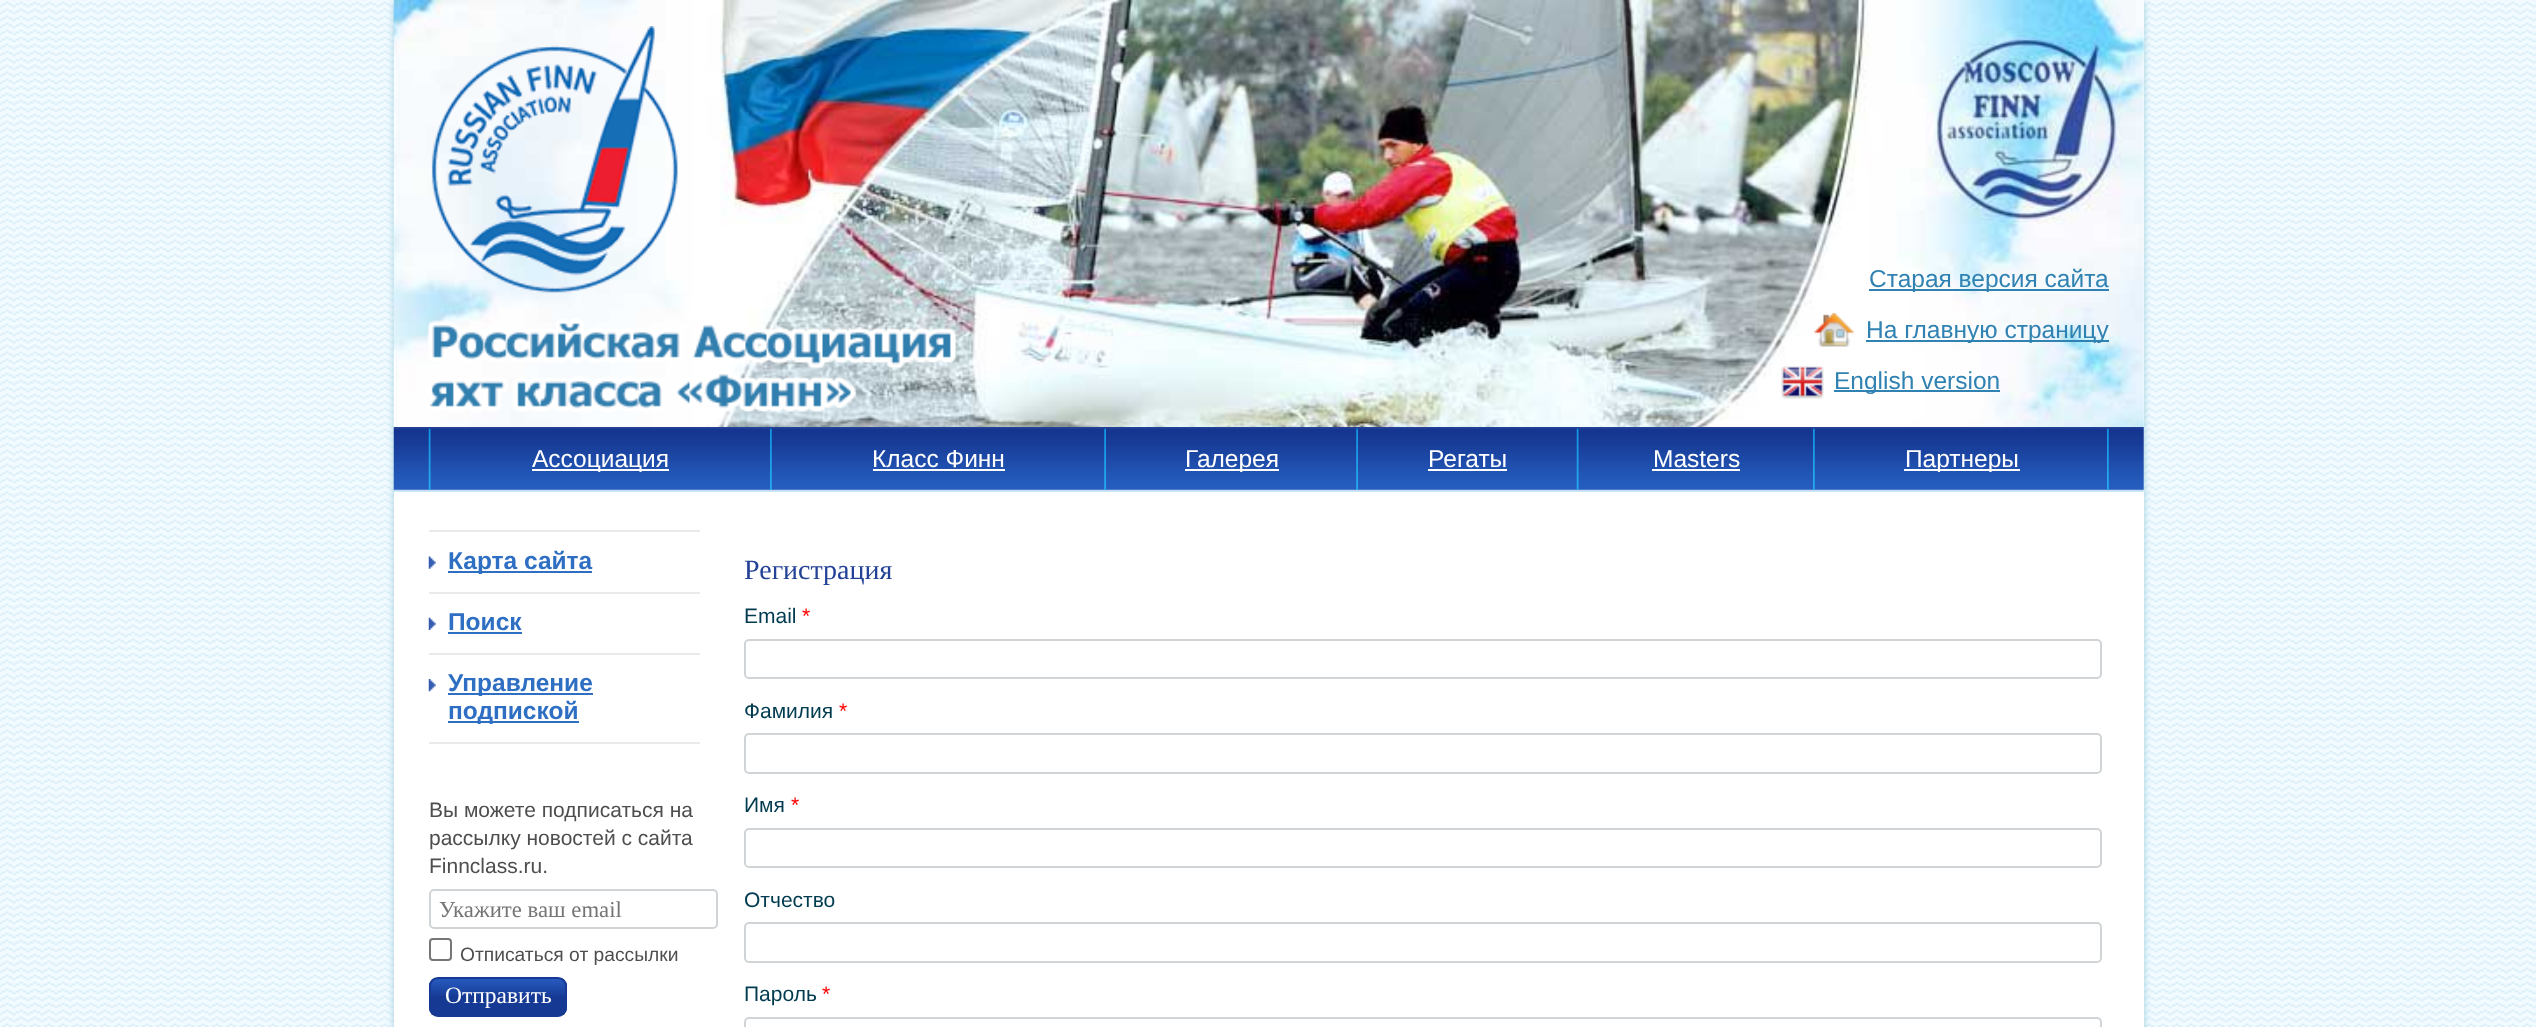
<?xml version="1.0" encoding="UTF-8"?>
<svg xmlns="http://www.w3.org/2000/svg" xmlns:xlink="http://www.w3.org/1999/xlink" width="2536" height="1027">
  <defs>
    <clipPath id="clip1"><rect x="429" y="977" width="138" height="40" rx="9" /></clipPath>
    <linearGradient id="g1" gradientUnits="userSpaceOnUse" x1="498" y1="978" x2="498" y2="1015"><stop offset="0" stop-color="#285cc1" /><stop offset="0.49" stop-color="#173c97" /><stop offset="0.5" stop-color="#163993" /><stop offset="1" stop-color="#163993" /></linearGradient>
  </defs>
  <rect width="100%" height="100%" fill="#ffffff" />
  <image x="0" y="0" width="2536" height="1027" xlink:href="image1.png" />
  <rect x="394" y="2" width="1750" height="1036" fill="#9cccdc" filter="blur(3.5px)" />
  <rect x="394" width="1750" height="1027" fill="#ffffff" />
  <image x="393" y="0" width="1751" height="429" xlink:href="image2.png" />
  <image x="431" y="26" width="247" height="267" xlink:href="image3.png" />
  <image x="427" y="318" width="529" height="95" xlink:href="image4.png" />
  <rect x="1869" y="289" width="240" height="2" fill="#3082b2" />
  <image x="1813" y="313" width="42" height="34" xlink:href="image5.png" />
  <rect x="1866" y="340" width="243" height="2" fill="#3082b2" />
  <image x="1781" y="366" width="43" height="33" xlink:href="image6.png" />
  <rect x="1834" y="390" width="166" height="2" fill="#3082b2" />
  <image x="393" y="427" width="1751" height="65" xlink:href="image7.png" />
  <image x="428" y="428" width="3" height="62" xlink:href="image8.png" />
  <image x="770" y="428" width="2" height="62" xlink:href="image9.png" />
  <rect x="532" y="469" width="137" height="2" fill="#ffffff" />
  <image x="1104" y="428" width="2" height="62" xlink:href="image10.png" />
  <rect x="873" y="469" width="132" height="2" fill="#ffffff" />
  <image x="1356" y="428" width="2" height="62" xlink:href="image10.png" />
  <rect x="1185" y="469" width="94" height="2" fill="#ffffff" />
  <image x="1576" y="428" width="3" height="62" xlink:href="image8.png" />
  <rect x="1428" y="469" width="79" height="2" fill="#ffffff" />
  <image x="1813" y="428" width="2" height="62" xlink:href="image9.png" />
  <rect x="1652" y="469" width="88" height="2" fill="#ffffff" />
  <image x="2107" y="428" width="2" height="62" xlink:href="image9.png" />
  <rect x="1904" y="469" width="116" height="2" fill="#ffffff" />
  <rect x="429" y="530" width="271" height="2" fill="#eaeaea" />
  <rect x="429" y="592" width="271" height="2" fill="#eaeaea" />
  <image x="428" y="556" width="8" height="13" xlink:href="image11.png" />
  <rect x="448" y="571" width="144" height="2" fill="#2e6fc3" />
  <rect x="429" y="653" width="271" height="2" fill="#eaeaea" />
  <image x="428" y="617" width="8" height="13" xlink:href="image12.png" />
  <rect x="448" y="632" width="74" height="2" fill="#2e6fc3" />
  <rect x="429" y="742" width="271" height="2" fill="#eaeaea" />
  <image x="428" y="679" width="8" height="13" xlink:href="image13.png" />
  <rect x="448" y="693" width="145" height="2" fill="#2e6fc3" />
  <rect x="448" y="721" width="131" height="2" fill="#2e6fc3" />
  <rect x="430" y="890" width="287" height="38" rx="4" fill="none" stroke="#d0d4d6" stroke-width="2" />
  <rect x="430" y="939" width="21" height="21" rx="3" fill="none" stroke="#767676" stroke-width="2" />
  <g clip-path="url(#clip1)">
    <rect x="429" y="978" width="138" height="37" fill="url(#g1)" />
  </g>
  <rect x="430" y="978" width="136" height="38" rx="8" fill="none" stroke="#163993" stroke-width="2" />
  <rect x="745" y="640" width="1356" height="38" rx="4" fill="none" stroke="#d0d4d6" stroke-width="2" />
  <rect x="745" y="734" width="1356" height="39" rx="4" fill="none" stroke="#d0d4d6" stroke-width="2" />
  <rect x="745" y="829" width="1356" height="38" rx="4" fill="none" stroke="#d0d4d6" stroke-width="2" />
  <rect x="745" y="923" width="1356" height="39" rx="4" fill="none" stroke="#d0d4d6" stroke-width="2" />
  <rect x="745" y="1018" width="1356" height="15" rx="4" fill="none" stroke="#d0d4d6" stroke-width="2" />
  <text x="1869" y="287" style="font-family: Liberation Sans; font-size: 24.5px; fill: #3082b2">Старая версия сайта</text>
  <text x="1866" y="338" style="font-family: Liberation Sans; font-size: 24.5px; fill: #3082b2">На главную страницу</text>
  <text x="1834" y="389" style="font-family: Liberation Sans; font-size: 24.5px; fill: #3082b2">English version</text>
  <text x="532" y="467" style="font-family: Liberation Sans; font-size: 24.5px; fill: #ffffff">Ассоциация</text>
  <text x="872" y="467" style="font-family: Liberation Sans; font-size: 24.5px; fill: #ffffff">Класс Финн</text>
  <text x="1185" y="467" style="font-family: Liberation Sans; font-size: 24.5px; fill: #ffffff">Галерея</text>
  <text x="1428" y="467" style="font-family: Liberation Sans; font-size: 24.5px; fill: #ffffff">Регаты</text>
  <text x="1653" y="467" style="font-family: Liberation Sans; font-size: 24.5px; fill: #ffffff">Masters</text>
  <text x="1905" y="467" style="font-family: Liberation Sans; font-size: 24.5px; fill: #ffffff">Партнеры</text>
  <text x="448" y="569" style="font-family: Liberation Sans; font-size: 24.5px; font-weight: bold; fill: #2e6fc3">Карта сайта</text>
  <text x="448" y="630" style="font-family: Liberation Sans; font-size: 24.5px; font-weight: bold; fill: #2e6fc3">Поиск</text>
  <text x="448" y="691" style="font-family: Liberation Sans; font-size: 24.5px; font-weight: bold; fill: #2e6fc3">Управление</text>
  <text x="448" y="719" style="font-family: Liberation Sans; font-size: 24.5px; font-weight: bold; fill: #2e6fc3">подпиской</text>
  <text x="429" y="817" style="font-family: Liberation Sans; font-size: 21px; fill: #4e4e4e">Вы можете подписаться на</text>
  <text x="429" y="845" style="font-family: Liberation Sans; font-size: 21px; fill: #4e4e4e">рассылку новостей с сайта</text>
  <text x="429" y="873" style="font-family: Liberation Sans; font-size: 21px; fill: #4e4e4e">Finnclass.ru.</text>
  <text x="439" y="917" style="font-family: Liberation Serif; font-size: 22.75px; fill: #757575">Укажите ваш email</text>
  <text x="460" y="961" style="font-family: Liberation Sans; font-size: 19.25px; fill: #4e4e4e">Отписаться от рассылки</text>
  <text x="445" y="1003" style="font-family: Liberation Serif; font-size: 23.5px; fill: #ffffff">Отправить</text>
  <text x="744" y="579" style="font-family: Liberation Serif; font-size: 28px; fill: #234196">Регистрация</text>
  <text x="744" y="623" style="font-family: Liberation Sans; font-size: 21px; fill: #003b4f">Email</text>
  <text x="802" y="623" style="font-family: Liberation Sans; font-size: 21px; fill: #ff0000">*</text>
  <text x="744" y="718" style="font-family: Liberation Sans; font-size: 21px; fill: #003b4f">Фамилия</text>
  <text x="839" y="718" style="font-family: Liberation Sans; font-size: 21px; fill: #ff0000">*</text>
  <text x="744" y="812" style="font-family: Liberation Sans; font-size: 21px; fill: #003b4f">Имя</text>
  <text x="791" y="812" style="font-family: Liberation Sans; font-size: 21px; fill: #ff0000">*</text>
  <text x="744" y="907" style="font-family: Liberation Sans; font-size: 21px; fill: #003b4f">Отчество</text>
  <text x="744" y="1001" style="font-family: Liberation Sans; font-size: 21px; fill: #003b4f">Пароль</text>
  <text x="822" y="1001" style="font-family: Liberation Sans; font-size: 21px; fill: #ff0000">*</text>
</svg>
